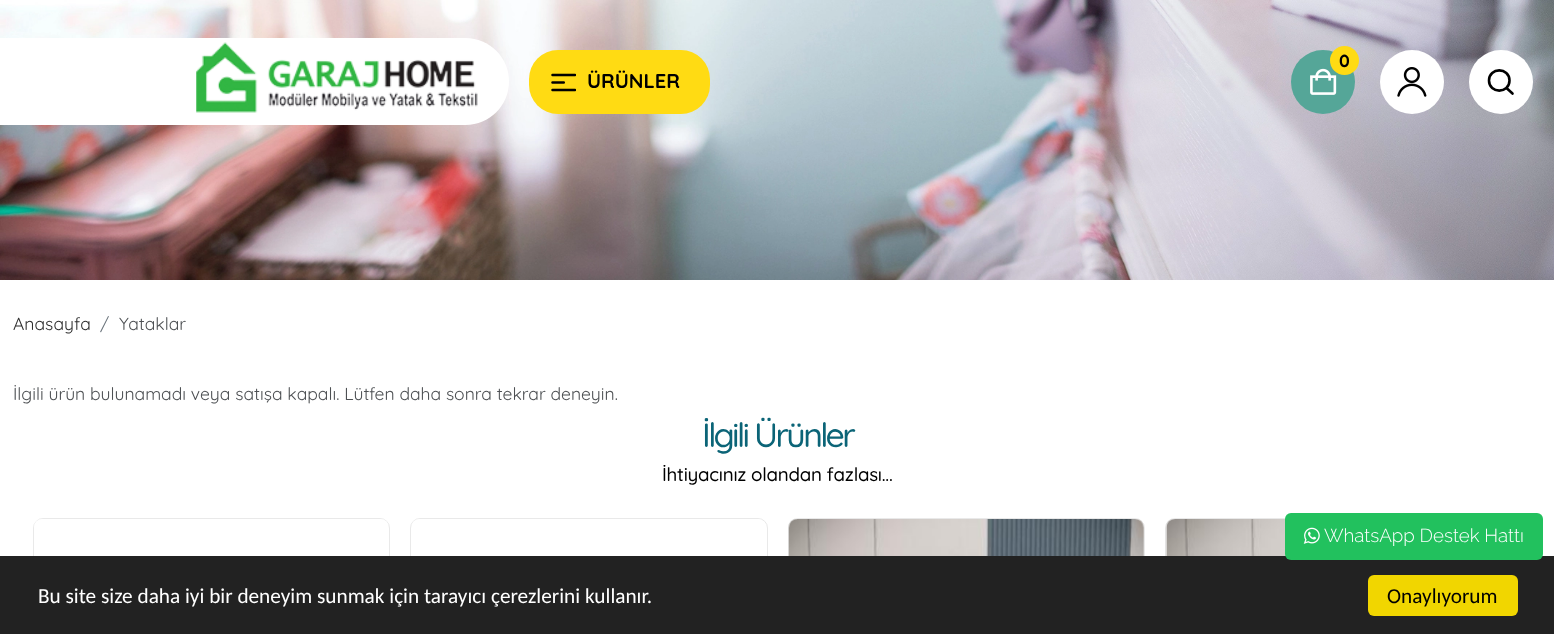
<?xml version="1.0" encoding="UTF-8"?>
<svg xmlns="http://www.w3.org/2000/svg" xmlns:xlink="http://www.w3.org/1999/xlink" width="1554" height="634">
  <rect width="100%" height="100%" fill="#ffffff" />
  <image x="0" y="0" width="1554" height="280" xlink:href="image5.png" />
  <rect y="38" width="13" height="87" fill="#ffffff" />
  <path d="M 13 38 h 452.5 c 24 0 43.5 19.5 43.5 43.5 c 0 24 -19.5 43.5 -43.5 43.5 h -452.5 z" fill="#ffffff" />
  <image x="196" y="42" width="282" height="71" xlink:href="image1.png" />
  <circle cx="1323" cy="82" r="32" fill="#55a698" />
  <image x="1310" y="68" width="27" height="27" xlink:href="image2.png" />
  <circle cx="1344.5" cy="60.5" r="14.5" fill="#ffdb13" />
  <circle cx="1412" cy="82" r="32" fill="#ffffff" />
  <image x="1397" y="67" width="30" height="30" xlink:href="image3.png" />
  <circle cx="1501" cy="82" r="32" fill="#ffffff" />
  <path d="M 1512.5 93.5 l -6 -5.5 m 3 -7.5 c 0 13.5 -20.5 13.5 -20.5 0 c 0 -13.5 20.5 -13.5 20.5 0 z" fill="none" stroke="#000000" stroke-width="2.6" stroke-linecap="round" stroke-linejoin="round" />
  <rect x="529" y="50" width="181" height="64" rx="29" fill="#ffdb13" />
  <image x="551" y="73" width="25" height="19" xlink:href="image4.png" />
  <rect x="33.5" y="518.5" width="356" height="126" rx="9.5" fill="none" stroke="#e9e9e9" />
  <image x="34" y="519" width="354" height="37" xlink:href="image6.png" />
  <rect x="410.5" y="518.5" width="357" height="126" rx="9.5" fill="none" stroke="#e9e9e9" />
  <image x="412" y="519" width="349" height="37" xlink:href="image7.png" />
  <rect x="788.5" y="518.5" width="356" height="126" rx="9.5" fill="none" stroke="#e9e9e9" />
  <image x="788" y="519" width="356" height="37" xlink:href="image8.png" />
  <rect x="1165.5" y="518.5" width="357" height="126" rx="9.5" fill="none" stroke="#e9e9e9" />
  <image x="1165" y="519" width="121" height="37" xlink:href="image9.png" />
  <rect y="556" width="1554" height="78" fill="#222222" />
  <rect x="1285" y="513" width="258" height="47" rx="6" fill="#22c15e" />
  <image x="1303" y="527" width="17" height="17" xlink:href="image10.png" />
  <rect x="1368" y="575" width="150" height="41" rx="6" fill="#f1d600" />
  <text x="1339" y="67" style="font-family: Quicksand; font-size: 17.5px; font-weight: bold; fill: #000000">0</text>
  <text x="587" y="88" style="font-family: Quicksand; font-size: 20px; font-weight: bold; fill: #000000">ÜRÜNLER</text>
  <text x="13" y="330" style="font-family: Quicksand; font-size: 17.5px; fill: #2d2d2d">Anasayfa</text>
  <text x="100" y="330" style="font-family: Quicksand; font-size: 17.5px; fill: #6c757d">/</text>
  <text x="119" y="330" style="font-family: Quicksand; font-size: 17.5px; fill: #4d5053">Yataklar</text>
  <text x="13" y="400" style="font-family: Quicksand; font-size: 17.5px; fill: #4d5053">İlgili ürün bulunamadı veya satışa kapalı. Lütfen daha sonra tekrar deneyin.</text>
  <text x="702" y="447" style="font-family: Quicksand; font-size: 33.75px; font-weight: 500; letter-spacing: -2.6px; fill: #0b6477">İlgili Ürünler</text>
  <text x="662" y="481" style="font-family: Quicksand; font-size: 18.75px; font-weight: 500; letter-spacing: -0.25px; fill: #000000">İhtiyacınız olandan fazlası...</text>
  <text x="1324" y="542" style="font-family: Raleway; font-size: 18.75px; font-weight: 300; fill: #ffffff">WhatsApp Destek Hattı</text>
  <text x="38" y="603" style="font-family: Carlito; font-size: 21.25px; fill: #ffffff">Bu site size daha iyi bir deneyim sunmak için tarayıcı çerezlerini kullanır.</text>
  <text x="1387" y="603" style="font-family: Carlito; font-size: 21.25px; fill: #000000">Onaylıyorum</text>
</svg>
